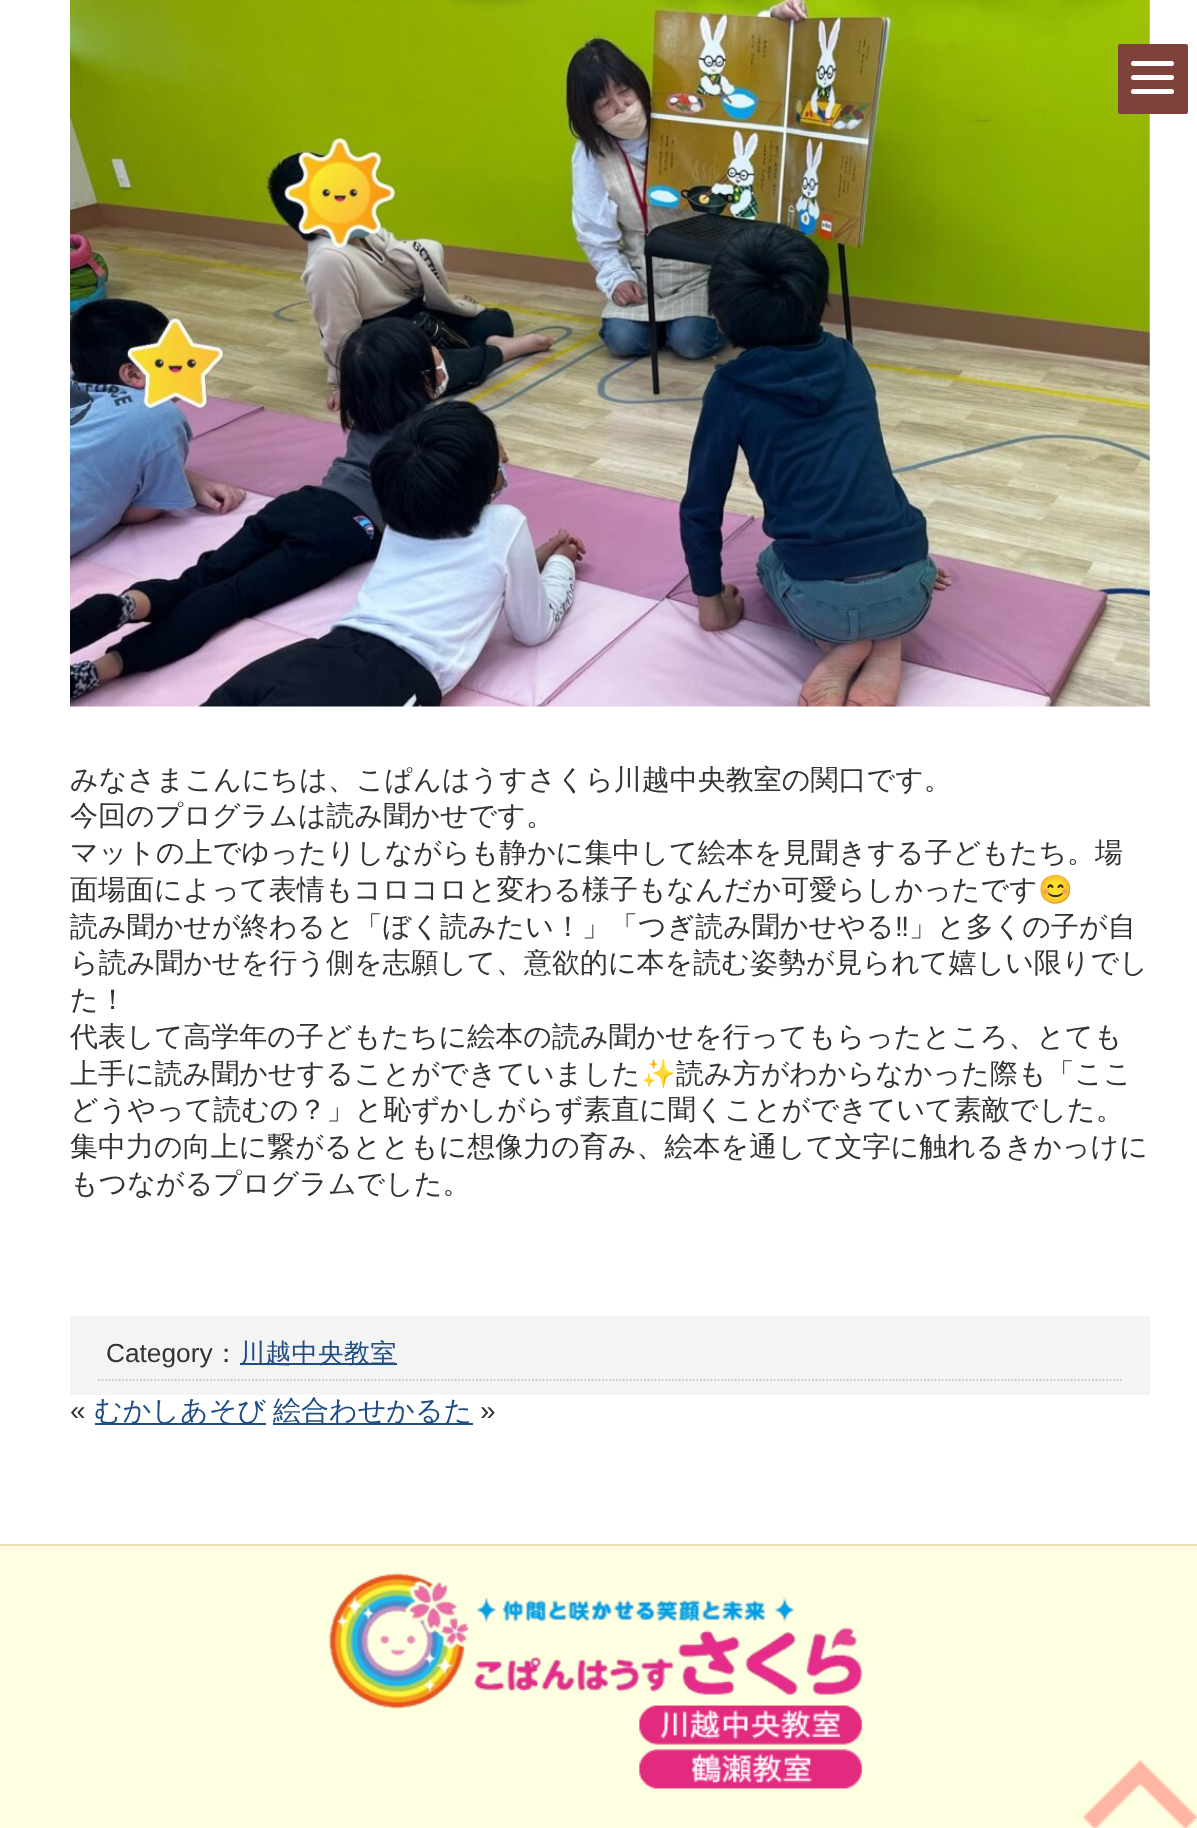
<?xml version="1.0" encoding="UTF-8"?>
<svg xmlns="http://www.w3.org/2000/svg" xmlns:xlink="http://www.w3.org/1999/xlink" width="1197" height="1828">
  <rect width="100%" height="100%" fill="#ffffff" />
  <image x="70" y="0" width="1080" height="707" xlink:href="image1.png" />
  <rect x="1118" y="44" width="70" height="70" rx="2" fill="#7d423a" />
  <rect x="1131" y="61" width="43" height="5" rx="2.5" fill="#ffffff" />
  <rect x="1131" y="75" width="43" height="5" rx="2.5" fill="#ffffff" />
  <rect x="1131" y="89" width="43" height="5" rx="2.5" fill="#ffffff" />
  <rect x="70" y="1316" width="1080" height="79" fill="#f4f4f4" />
  <path d="M 98 1380 h 1024" fill="none" stroke="#cccccc" stroke-width="1.8" stroke-dasharray="1.75 1.75" />
  <rect x="240" y="1363" width="157" height="2" fill="#1f4d84" />
  <rect x="95" y="1423" width="171" height="2" fill="#1f4d84" />
  <rect x="273" y="1423" width="200" height="2" fill="#1f4d84" />
  <rect y="1546" width="1197" height="282" fill="#feffe0" />
  <rect y="1544" width="1197" height="2" fill="#eadfb3" />
  <image x="329" y="1572" width="534" height="217" xlink:href="image2.png" />
  <image x="1083" y="1760" width="114" height="68" xlink:href="image3.png" />
  <text x="70" y="789" style="font-family: WenQuanYi Zen Hei; font-size: 28px; font-weight: 500; fill: #333333">みなさまこんにちは、こぱんはうすさくら川越中央教室の関口です。</text>
  <text x="70" y="825" style="font-family: WenQuanYi Zen Hei; font-size: 28px; font-weight: 500; fill: #333333">今回のプログラムは読み聞かせです。</text>
  <text x="70" y="862" style="font-family: WenQuanYi Zen Hei; font-size: 28px; font-weight: 500; fill: #333333">マットの上でゆったりしながらも静かに集中して絵本を見聞きする子どもたち。場</text>
  <text x="70" y="899" style="font-family: WenQuanYi Zen Hei; font-size: 28px; font-weight: 500; fill: #333333">面場面によって表情もコロコロと変わる様子もなんだか可愛らしかったです</text>
  <text x="1038" y="899" style="font-family: Noto Color Emoji; font-size: 28px; fill: #333333">😊</text>
  <text x="70" y="936" style="font-family: WenQuanYi Zen Hei; font-size: 28px; font-weight: 500; fill: #333333">読み聞かせが終わると「ぼく読みたい！」「つぎ読み聞かせやる</text>
  <text x="895" y="936" style="font-family: Liberation Sans; font-size: 28px; fill: #333333">‼</text>
  <text x="909" y="936" style="font-family: WenQuanYi Zen Hei; font-size: 28px; font-weight: 500; fill: #333333">」と多くの子が自</text>
  <text x="70" y="972" style="font-family: WenQuanYi Zen Hei; font-size: 28px; font-weight: 500; fill: #333333">ら読み聞かせを行う側を志願して、意欲的に本を読む姿勢が見られて嬉しい限りでし</text>
  <text x="70" y="1009" style="font-family: WenQuanYi Zen Hei; font-size: 28px; font-weight: 500; fill: #333333">た！</text>
  <text x="70" y="1046" style="font-family: WenQuanYi Zen Hei; font-size: 28px; font-weight: 500; fill: #333333">代表して高学年の子どもたちに絵本の読み聞かせを行ってもらったところ、とても</text>
  <text x="70" y="1083" style="font-family: WenQuanYi Zen Hei; font-size: 28px; font-weight: 500; fill: #333333">上手に読み聞かせすることができていました</text>
  <text x="641" y="1083" style="font-family: Noto Color Emoji; font-size: 28px; fill: #333333">✨</text>
  <text x="676" y="1083" style="font-family: WenQuanYi Zen Hei; font-size: 28px; font-weight: 500; fill: #333333">読み方がわからなかった際も「ここ</text>
  <text x="70" y="1119" style="font-family: WenQuanYi Zen Hei; font-size: 28px; font-weight: 500; fill: #333333">どうやって読むの？」と恥ずかしがらず素直に聞くことができていて素敵でした。</text>
  <text x="70" y="1156" style="font-family: WenQuanYi Zen Hei; font-size: 28px; font-weight: 500; fill: #333333">集中力の向上に繋がるとともに想像力の育み、絵本を通して文字に触れるきかっけに</text>
  <text x="70" y="1193" style="font-family: WenQuanYi Zen Hei; font-size: 28px; font-weight: 500; fill: #333333">もつながるプログラムでした。</text>
  <text x="106" y="1362" style="font-family: Liberation Sans; font-size: 26.25px; fill: #333333">Category</text>
  <text x="213" y="1362" style="font-family: WenQuanYi Zen Hei; font-size: 26.25px; font-weight: 500; fill: #333333">：</text>
  <text x="239" y="1362" style="font-family: WenQuanYi Zen Hei; font-size: 26.25px; font-weight: 500; fill: #1f4d84">川越中央教室</text>
  <text x="70" y="1420" style="font-family: Liberation Sans; font-size: 28px; fill: #333333">«</text>
  <text x="94" y="1420" style="font-family: WenQuanYi Zen Hei; font-size: 28px; font-weight: 500; fill: #1f4d84">むかしあそび</text>
  <text x="273" y="1420" style="font-family: WenQuanYi Zen Hei; font-size: 28px; font-weight: 500; fill: #1f4d84">絵合わせかるた</text>
  <text x="480" y="1420" style="font-family: Liberation Sans; font-size: 28px; fill: #333333">»</text>
</svg>
